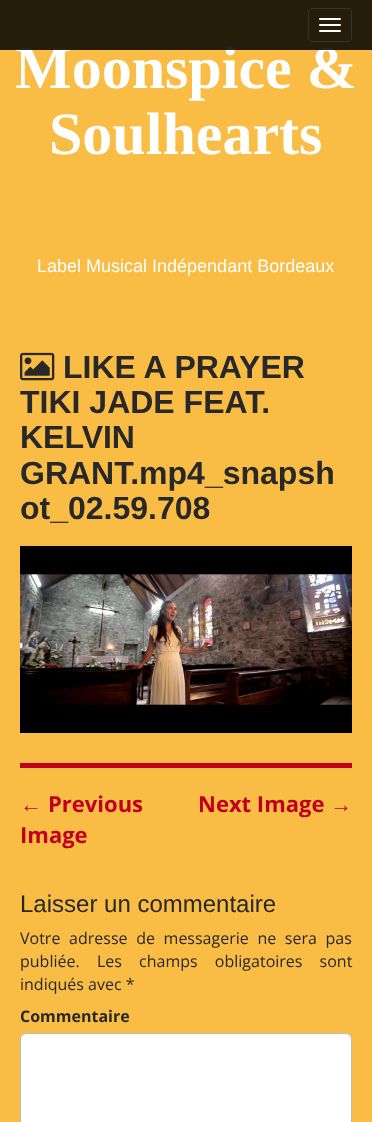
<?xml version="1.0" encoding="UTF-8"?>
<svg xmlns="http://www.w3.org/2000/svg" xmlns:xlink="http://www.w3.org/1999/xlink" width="372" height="1122">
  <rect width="100%" height="100%" fill="#f9bd45" />
  <rect x="20" y="763" width="332" height="5" fill="#c1001f" />
  <image x="20" y="352" width="35" height="29" xlink:href="image1.png" />
  <image x="20" y="546" width="332" height="187" xlink:href="image2.png" />
  <rect x="20.5" y="1033.5" width="331" height="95" rx="5.5" fill="#ffffff" stroke="#bbbbbb" />
  <text x="15" y="88" style="font-family: Liberation Serif; font-size: 60px; font-weight: bold; fill: #ffffff">Moonspice &amp;</text>
  <rect width="372" height="50" fill="#000000" fill-opacity="0.85" />
  <rect x="308.5" y="8.5" width="43" height="33" rx="3.5" fill="none" stroke="#333333" />
  <rect x="319" y="30" width="22" height="2" rx="1" fill="#ffffff" />
  <rect x="319" y="24" width="22" height="2" rx="1" fill="#ffffff" />
  <rect x="319" y="18" width="22" height="2" rx="1" fill="#ffffff" />
  <text x="49" y="154" style="font-family: Liberation Serif; font-size: 60px; font-weight: bold; fill: #ffffff">Soulhearts</text>
  <text x="37" y="272" style="font-family: Liberation Sans; font-size: 18px; fill: #ffffff">Label Musical Indépendant Bordeaux</text>
  <text x="63" y="378" style="font-family: Liberation Sans; font-size: 32px; font-weight: bold; fill: #282828">LIKE A PRAYER</text>
  <text x="20" y="413" style="font-family: Liberation Sans; font-size: 32px; font-weight: bold; fill: #282828">TIKI JADE FEAT.</text>
  <text x="20" y="448" style="font-family: Liberation Sans; font-size: 32px; font-weight: bold; fill: #282828">KELVIN</text>
  <text x="20" y="484" style="font-family: Liberation Sans; font-size: 32px; font-weight: bold; fill: #282828">GRANT.mp4_snapsh</text>
  <text x="20" y="519" style="font-family: Liberation Sans; font-size: 32px; font-weight: bold; fill: #282828">ot_02.59.708</text>
  <text x="20" y="812" style="font-family: Liberation Sans; font-size: 22px; font-weight: bold; fill: #c1001f">←</text>
  <text x="48" y="812" style="font-family: Open Sans; font-size: 22px; font-weight: bold; fill: #c1001f">Previous</text>
  <text x="20" y="843" style="font-family: Open Sans; font-size: 22px; font-weight: bold; fill: #c1001f">Image</text>
  <text x="198" y="812" style="font-family: Open Sans; font-size: 22px; font-weight: bold; fill: #c1001f">Next Image</text>
  <text x="330" y="812" style="font-family: Liberation Sans; font-size: 22px; font-weight: bold; fill: #c1001f">→</text>
  <text x="20" y="912" style="font-family: Liberation Sans; font-size: 24px; fill: #282828">Laisser un commentaire</text>
  <text x="20" y="944" word-spacing="4.5" style="font-family: Open Sans; font-size: 16px; fill: #282828">Votre adresse de messagerie ne sera pas</text>
  <text x="20" y="967" style="font-family: Open Sans; font-size: 16px; fill: #282828">publiée.</text>
  <text x="97" y="967" word-spacing="13" style="font-family: Open Sans; font-size: 16px; fill: #282828">Les champs obligatoires sont</text>
  <text x="20" y="990" style="font-family: Open Sans; font-size: 16px; fill: #282828">indiqués avec *</text>
  <text x="20" y="1022" style="font-family: Open Sans; font-size: 16px; font-weight: bold; fill: #282828">Commentaire</text>
</svg>
